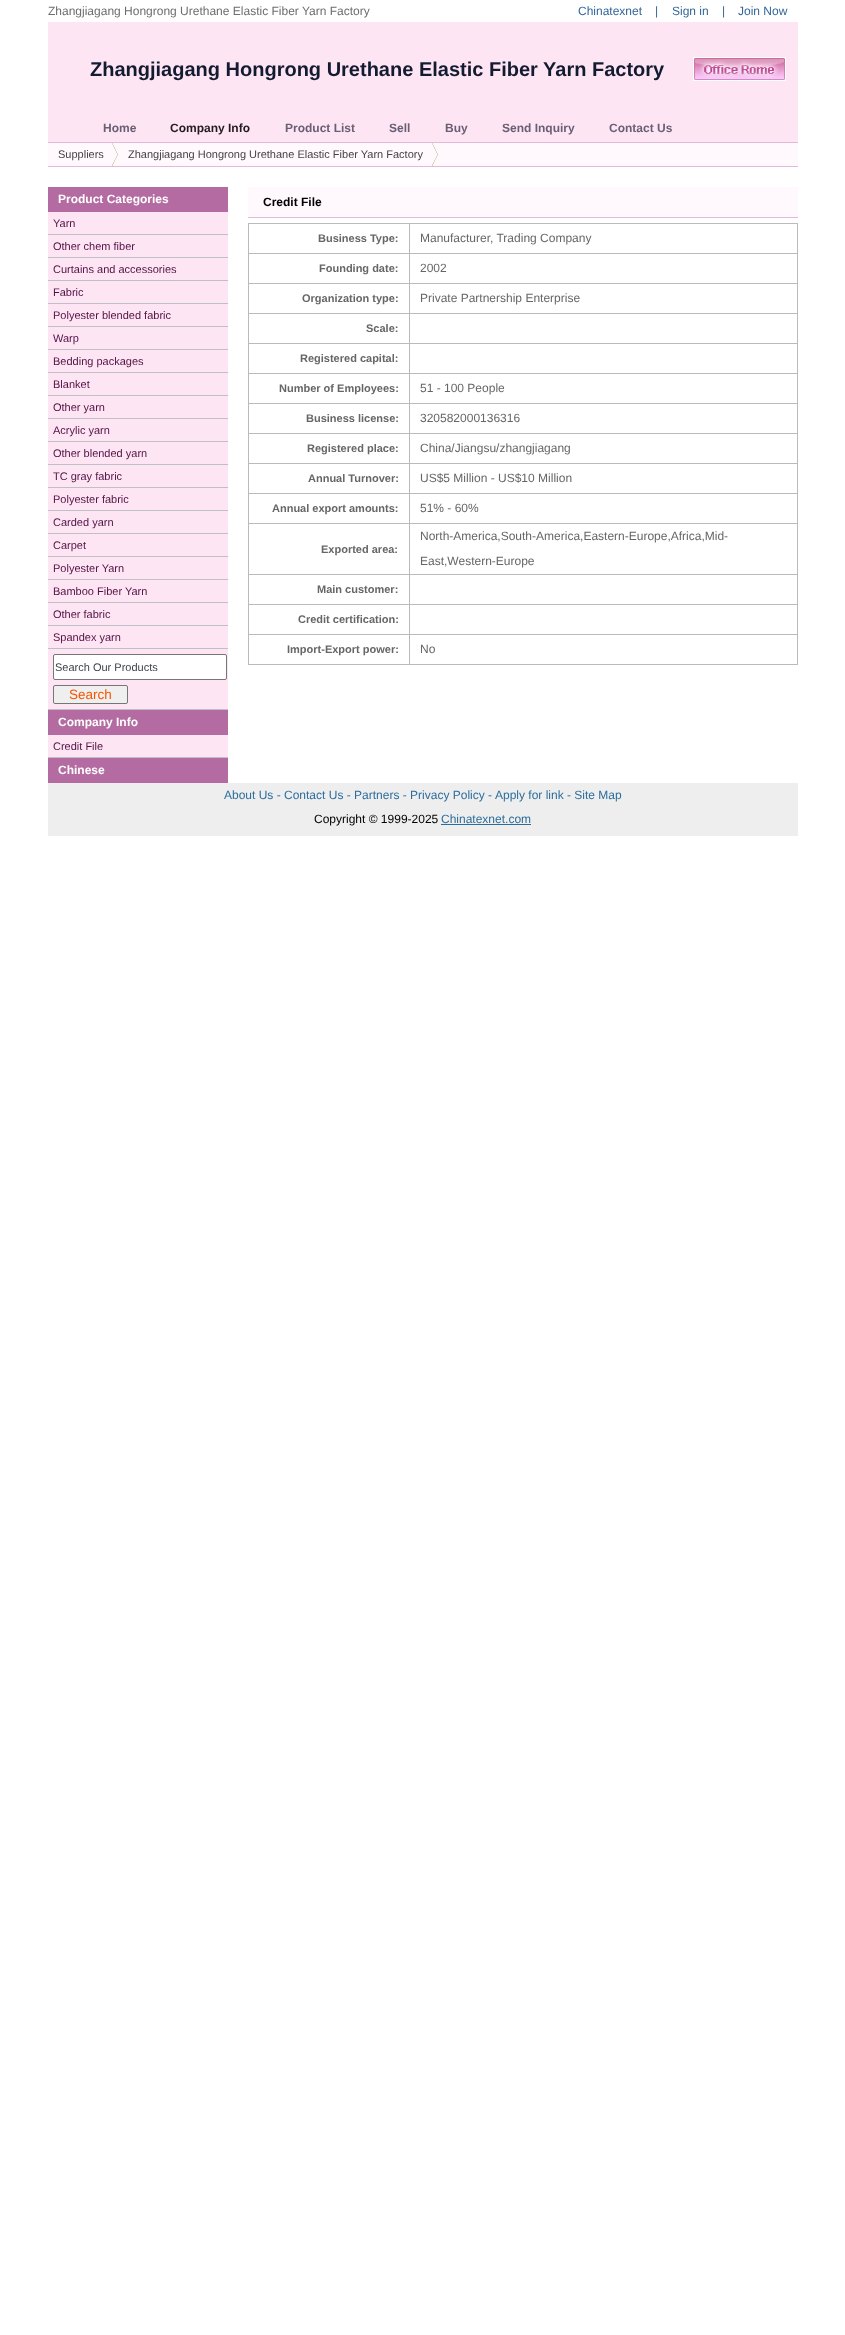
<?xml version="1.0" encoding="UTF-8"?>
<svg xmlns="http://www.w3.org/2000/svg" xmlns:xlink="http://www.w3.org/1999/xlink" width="845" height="2335">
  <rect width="100%" height="100%" fill="#ffffff" />
  <rect x="48" y="22" width="750" height="120" fill="#fee5f4" />
  <image x="693" y="57" width="93" height="24" xlink:href="image1.png" />
  <rect x="48" y="143" width="750" height="23" fill="#fff8fc" />
  <rect x="48" y="142" width="750" height="1" fill="#e3b8d9" />
  <rect x="48" y="166" width="750" height="1" fill="#e3b8d9" />
  <image x="112" y="143" width="6" height="23" xlink:href="image2.png" />
  <image x="432" y="143" width="6" height="23" xlink:href="image2.png" />
  <rect x="48" y="212" width="180" height="545" fill="#fee5f4" />
  <rect x="48" y="187" width="180" height="25" fill="#b36ba2" />
  <rect x="48" y="234" width="180" height="1" fill="#bfbfc8" />
  <rect x="48" y="257" width="180" height="1" fill="#bfbfc8" />
  <rect x="48" y="280" width="180" height="1" fill="#bfbfc8" />
  <rect x="48" y="303" width="180" height="1" fill="#bfbfc8" />
  <rect x="48" y="326" width="180" height="1" fill="#bfbfc8" />
  <rect x="48" y="349" width="180" height="1" fill="#bfbfc8" />
  <rect x="48" y="372" width="180" height="1" fill="#bfbfc8" />
  <rect x="48" y="395" width="180" height="1" fill="#bfbfc8" />
  <rect x="48" y="418" width="180" height="1" fill="#bfbfc8" />
  <rect x="48" y="441" width="180" height="1" fill="#bfbfc8" />
  <rect x="48" y="464" width="180" height="1" fill="#bfbfc8" />
  <rect x="48" y="487" width="180" height="1" fill="#bfbfc8" />
  <rect x="48" y="510" width="180" height="1" fill="#bfbfc8" />
  <rect x="48" y="533" width="180" height="1" fill="#bfbfc8" />
  <rect x="48" y="556" width="180" height="1" fill="#bfbfc8" />
  <rect x="48" y="579" width="180" height="1" fill="#bfbfc8" />
  <rect x="48" y="602" width="180" height="1" fill="#bfbfc8" />
  <rect x="48" y="625" width="180" height="1" fill="#bfbfc8" />
  <rect x="48" y="648" width="180" height="1" fill="#bfbfc8" />
  <rect x="48" y="709" width="180" height="1" fill="#bfbfc8" />
  <rect x="53.5" y="654.5" width="173" height="25" rx="1.5" fill="#ffffff" stroke="#767676" />
  <rect x="53.5" y="685.5" width="74" height="18" rx="1.5" fill="#efefef" stroke="#767676" />
  <rect x="48" y="710" width="180" height="25" fill="#b36ba2" />
  <rect x="48" y="757" width="180" height="1" fill="#bfbfc8" />
  <rect x="48" y="758" width="180" height="25" fill="#b36ba2" />
  <rect x="248" y="187" width="550" height="30" fill="#fff8fc" />
  <rect x="248" y="217" width="550" height="1" fill="#e3b8d9" />
  <rect x="248" y="223" width="550" height="1" fill="#bbbbbb" />
  <rect x="797" y="223" width="1" height="442" fill="#bbbbbb" />
  <rect x="248" y="664" width="550" height="1" fill="#bbbbbb" />
  <rect x="248" y="223" width="1" height="442" fill="#bbbbbb" />
  <rect x="409" y="253" width="389" height="1" fill="#bbbbbb" />
  <rect x="409" y="283" width="389" height="1" fill="#bbbbbb" />
  <rect x="409" y="313" width="389" height="1" fill="#bbbbbb" />
  <rect x="409" y="343" width="389" height="1" fill="#bbbbbb" />
  <rect x="409" y="373" width="389" height="1" fill="#bbbbbb" />
  <rect x="409" y="403" width="389" height="1" fill="#bbbbbb" />
  <rect x="409" y="433" width="389" height="1" fill="#bbbbbb" />
  <rect x="409" y="463" width="389" height="1" fill="#bbbbbb" />
  <rect x="409" y="493" width="389" height="1" fill="#bbbbbb" />
  <rect x="409" y="523" width="389" height="1" fill="#bbbbbb" />
  <rect x="409" y="574" width="389" height="1" fill="#bbbbbb" />
  <rect x="409" y="604" width="389" height="1" fill="#bbbbbb" />
  <rect x="409" y="634" width="389" height="1" fill="#bbbbbb" />
  <rect x="409" y="634" width="1" height="31" fill="#bbbbbb" />
  <rect x="248" y="634" width="162" height="1" fill="#bbbbbb" />
  <rect x="409" y="604" width="1" height="31" fill="#bbbbbb" />
  <rect x="248" y="604" width="162" height="1" fill="#bbbbbb" />
  <rect x="409" y="574" width="1" height="31" fill="#bbbbbb" />
  <rect x="248" y="574" width="162" height="1" fill="#bbbbbb" />
  <rect x="409" y="523" width="1" height="52" fill="#bbbbbb" />
  <rect x="248" y="523" width="162" height="1" fill="#bbbbbb" />
  <rect x="409" y="493" width="1" height="31" fill="#bbbbbb" />
  <rect x="248" y="493" width="162" height="1" fill="#bbbbbb" />
  <rect x="409" y="463" width="1" height="31" fill="#bbbbbb" />
  <rect x="248" y="463" width="162" height="1" fill="#bbbbbb" />
  <rect x="409" y="433" width="1" height="31" fill="#bbbbbb" />
  <rect x="248" y="433" width="162" height="1" fill="#bbbbbb" />
  <rect x="409" y="403" width="1" height="31" fill="#bbbbbb" />
  <rect x="248" y="403" width="162" height="1" fill="#bbbbbb" />
  <rect x="409" y="373" width="1" height="31" fill="#bbbbbb" />
  <rect x="248" y="373" width="162" height="1" fill="#bbbbbb" />
  <rect x="409" y="343" width="1" height="31" fill="#bbbbbb" />
  <rect x="248" y="343" width="162" height="1" fill="#bbbbbb" />
  <rect x="409" y="313" width="1" height="31" fill="#bbbbbb" />
  <rect x="248" y="313" width="162" height="1" fill="#bbbbbb" />
  <rect x="409" y="283" width="1" height="31" fill="#bbbbbb" />
  <rect x="248" y="283" width="162" height="1" fill="#bbbbbb" />
  <rect x="409" y="253" width="1" height="31" fill="#bbbbbb" />
  <rect x="248" y="253" width="162" height="1" fill="#bbbbbb" />
  <rect x="409" y="223" width="1" height="31" fill="#bbbbbb" />
  <rect x="48" y="783" width="750" height="53" fill="#eeeeee" />
  <rect x="441" y="824" width="90" height="1" fill="#2c6d9d" />
  <text x="48" y="15" style="font-family: Liberation Sans; font-size: 12px; fill: #6d6d6d">Zhangjiagang Hongrong Urethane Elastic Fiber Yarn Factory</text>
  <text x="578" y="15" style="font-family: Liberation Sans; font-size: 12px; fill: #336699">Chinatexnet</text>
  <text x="655" y="15" style="font-family: Liberation Sans; font-size: 12px; fill: #336699">|</text>
  <text x="672" y="15" style="font-family: Liberation Sans; font-size: 12px; fill: #336699">Sign in</text>
  <text x="722" y="15" style="font-family: Liberation Sans; font-size: 12px; fill: #336699">|</text>
  <text x="738" y="15" style="font-family: Liberation Sans; font-size: 12px; fill: #336699">Join Now</text>
  <text x="90" y="76" style="font-family: Liberation Sans; font-size: 20px; font-weight: bold; fill: #121b30">Zhangjiagang Hongrong Urethane Elastic Fiber Yarn Factory</text>
  <text x="103" y="132" style="font-family: Liberation Sans; font-size: 12px; font-weight: bold; fill: #695f74">Home</text>
  <text x="170" y="132" style="font-family: Liberation Sans; font-size: 12px; font-weight: bold; fill: #231921">Company Info</text>
  <text x="285" y="132" style="font-family: Liberation Sans; font-size: 12px; font-weight: bold; fill: #695f74">Product List</text>
  <text x="389" y="132" style="font-family: Liberation Sans; font-size: 12px; font-weight: bold; fill: #695f74">Sell</text>
  <text x="445" y="132" style="font-family: Liberation Sans; font-size: 12px; font-weight: bold; fill: #695f74">Buy</text>
  <text x="502" y="132" style="font-family: Liberation Sans; font-size: 12px; font-weight: bold; fill: #695f74">Send Inquiry</text>
  <text x="609" y="132" style="font-family: Liberation Sans; font-size: 12px; font-weight: bold; fill: #695f74">Contact Us</text>
  <text x="58" y="158" style="font-family: Liberation Sans; font-size: 11px; fill: #444444">Suppliers</text>
  <text x="128" y="158" style="font-family: Liberation Sans; font-size: 11px; fill: #444444">Zhangjiagang Hongrong Urethane Elastic Fiber Yarn Factory</text>
  <text x="58" y="203" style="font-family: Liberation Sans; font-size: 12px; font-weight: bold; fill: #ffffff">Product Categories</text>
  <text x="53" y="227" style="font-family: Liberation Sans; font-size: 11px; fill: #531244">Yarn</text>
  <text x="53" y="250" style="font-family: Liberation Sans; font-size: 11px; fill: #531244">Other chem fiber</text>
  <text x="53" y="273" style="font-family: Liberation Sans; font-size: 11px; fill: #531244">Curtains and accessories</text>
  <text x="53" y="296" style="font-family: Liberation Sans; font-size: 11px; fill: #531244">Fabric</text>
  <text x="53" y="319" style="font-family: Liberation Sans; font-size: 11px; fill: #531244">Polyester blended fabric</text>
  <text x="53" y="342" style="font-family: Liberation Sans; font-size: 11px; fill: #531244">Warp</text>
  <text x="53" y="365" style="font-family: Liberation Sans; font-size: 11px; fill: #531244">Bedding packages</text>
  <text x="53" y="388" style="font-family: Liberation Sans; font-size: 11px; fill: #531244">Blanket</text>
  <text x="53" y="411" style="font-family: Liberation Sans; font-size: 11px; fill: #531244">Other yarn</text>
  <text x="53" y="434" style="font-family: Liberation Sans; font-size: 11px; fill: #531244">Acrylic yarn</text>
  <text x="53" y="457" style="font-family: Liberation Sans; font-size: 11px; fill: #531244">Other blended yarn</text>
  <text x="53" y="480" style="font-family: Liberation Sans; font-size: 11px; fill: #531244">TC gray fabric</text>
  <text x="53" y="503" style="font-family: Liberation Sans; font-size: 11px; fill: #531244">Polyester fabric</text>
  <text x="53" y="526" style="font-family: Liberation Sans; font-size: 11px; fill: #531244">Carded yarn</text>
  <text x="53" y="549" style="font-family: Liberation Sans; font-size: 11px; fill: #531244">Carpet</text>
  <text x="53" y="572" style="font-family: Liberation Sans; font-size: 11px; fill: #531244">Polyester Yarn</text>
  <text x="53" y="595" style="font-family: Liberation Sans; font-size: 11px; fill: #531244">Bamboo Fiber Yarn</text>
  <text x="53" y="618" style="font-family: Liberation Sans; font-size: 11px; fill: #531244">Other fabric</text>
  <text x="53" y="641" style="font-family: Liberation Sans; font-size: 11px; fill: #531244">Spandex yarn</text>
  <text x="55" y="671" style="font-family: Liberation Sans; font-size: 11px; fill: #3d464b">Search Our Products</text>
  <text x="69" y="699" style="font-family: Liberation Sans; font-size: 13.5px; fill: #f65500">Search</text>
  <text x="58" y="726" style="font-family: Liberation Sans; font-size: 12px; font-weight: bold; fill: #ffffff">Company Info</text>
  <text x="53" y="750" style="font-family: Liberation Sans; font-size: 11px; fill: #531244">Credit File</text>
  <text x="58" y="774" style="font-family: Liberation Sans; font-size: 12px; font-weight: bold; fill: #ffffff">Chinese</text>
  <text x="263" y="206" style="font-family: Liberation Sans; font-size: 12px; font-weight: bold; fill: #000000">Credit File</text>
  <text x="318" y="242" style="font-family: Liberation Sans; font-size: 11px; font-weight: bold; fill: #666666">Business Type:</text>
  <text x="420" y="242" style="font-family: Liberation Sans; font-size: 12px; fill: #666666">Manufacturer, Trading Company</text>
  <text x="319" y="272" style="font-family: Liberation Sans; font-size: 11px; font-weight: bold; fill: #666666">Founding date:</text>
  <text x="420" y="272" style="font-family: Liberation Sans; font-size: 12px; fill: #666666">2002</text>
  <text x="302" y="302" style="font-family: Liberation Sans; font-size: 11px; font-weight: bold; fill: #666666">Organization type:</text>
  <text x="420" y="302" style="font-family: Liberation Sans; font-size: 12px; fill: #666666">Private Partnership Enterprise</text>
  <text x="366" y="332" style="font-family: Liberation Sans; font-size: 11px; font-weight: bold; fill: #666666">Scale:</text>
  <text x="300" y="362" style="font-family: Liberation Sans; font-size: 11px; font-weight: bold; fill: #666666">Registered capital:</text>
  <text x="279" y="392" style="font-family: Liberation Sans; font-size: 11px; font-weight: bold; fill: #666666">Number of Employees:</text>
  <text x="420" y="392" style="font-family: Liberation Sans; font-size: 12px; fill: #666666">51 - 100 People</text>
  <text x="306" y="422" style="font-family: Liberation Sans; font-size: 11px; font-weight: bold; fill: #666666">Business license:</text>
  <text x="420" y="422" style="font-family: Liberation Sans; font-size: 12px; fill: #666666">320582000136316</text>
  <text x="307" y="452" style="font-family: Liberation Sans; font-size: 11px; font-weight: bold; fill: #666666">Registered place:</text>
  <text x="420" y="452" style="font-family: Liberation Sans; font-size: 12px; fill: #666666">China/Jiangsu/zhangjiagang</text>
  <text x="308" y="482" style="font-family: Liberation Sans; font-size: 11px; font-weight: bold; fill: #666666">Annual Turnover:</text>
  <text x="420" y="482" style="font-family: Liberation Sans; font-size: 12px; fill: #666666">US$5 Million - US$10 Million</text>
  <text x="272" y="512" style="font-family: Liberation Sans; font-size: 11px; font-weight: bold; fill: #666666">Annual export amounts:</text>
  <text x="420" y="512" style="font-family: Liberation Sans; font-size: 12px; fill: #666666">51% - 60%</text>
  <text x="321" y="553" style="font-family: Liberation Sans; font-size: 11px; font-weight: bold; fill: #666666">Exported area:</text>
  <text x="420" y="540" style="font-family: Liberation Sans; font-size: 12px; fill: #666666">North-America,South-America,Eastern-Europe,Africa,Mid-</text>
  <text x="420" y="565" style="font-family: Liberation Sans; font-size: 12px; fill: #666666">East,Western-Europe</text>
  <text x="317" y="593" style="font-family: Liberation Sans; font-size: 11px; font-weight: bold; fill: #666666">Main customer:</text>
  <text x="298" y="623" style="font-family: Liberation Sans; font-size: 11px; font-weight: bold; fill: #666666">Credit certification:</text>
  <text x="287" y="653" style="font-family: Liberation Sans; font-size: 11px; font-weight: bold; fill: #666666">Import-Export power:</text>
  <text x="420" y="653" style="font-family: Liberation Sans; font-size: 12px; fill: #666666">No</text>
  <text x="224" y="799" style="font-family: Liberation Sans; font-size: 12px; fill: #2c6d9d">About Us - Contact Us - Partners - Privacy Policy -</text>
  <text x="495" y="799" style="font-family: Liberation Sans; font-size: 12px; fill: #2c6d9d">Apply for link - Site Map</text>
  <text x="314" y="823" style="font-family: Liberation Sans; font-size: 12px; fill: #000000">Copyright © 1999-2025</text>
  <text x="441" y="823" style="font-family: Liberation Sans; font-size: 12px; fill: #2c6d9d">Chinatexnet.com</text>
</svg>
